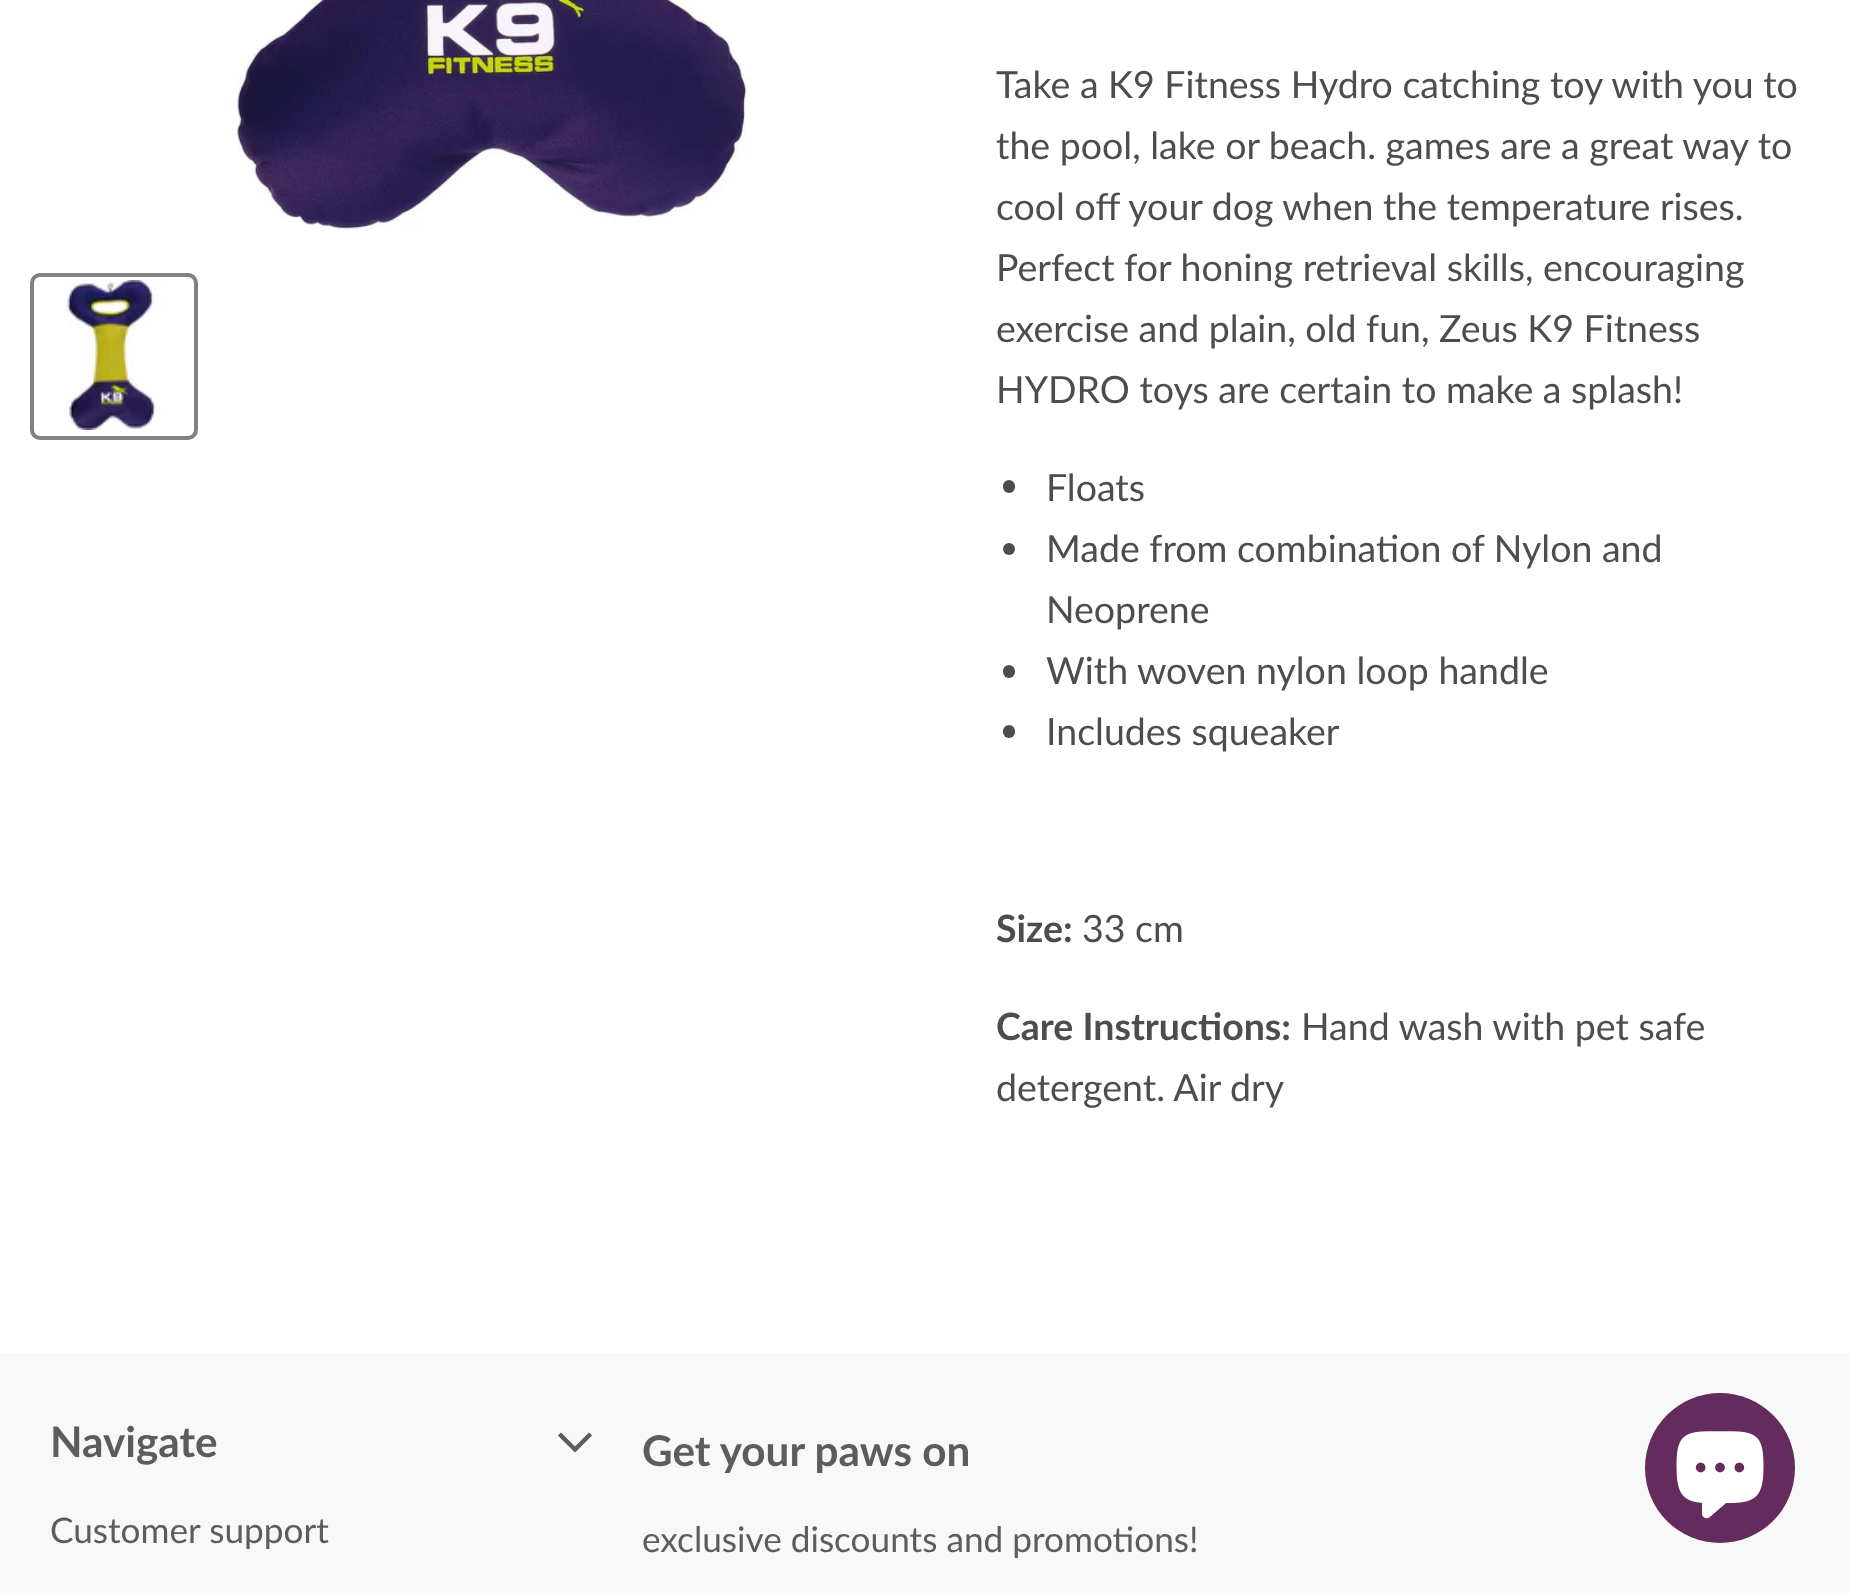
<?xml version="1.0" encoding="UTF-8"?>
<svg xmlns="http://www.w3.org/2000/svg" xmlns:xlink="http://www.w3.org/1999/xlink" width="1849" height="1593">
  <rect width="100%" height="100%" fill="#ffffff" />
  <image x="235" y="0" width="515" height="230" xlink:href="image1.png" />
  <rect x="32" y="275" width="164" height="163" rx="8" fill="none" stroke="#818181" stroke-width="4" />
  <image x="64" y="280" width="99" height="150" xlink:href="image2.png" />
  <rect x="1003" y="480" width="12" height="13" rx="6" fill="#4d4d4d" />
  <circle cx="1009" cy="549" r="6" fill="#4d4d4d" />
  <rect x="1003" y="665" width="12" height="13" rx="6" fill="#4d4d4d" />
  <rect x="1003" y="725" width="12" height="13" rx="6" fill="#4d4d4d" />
  <rect y="1353" width="1849" height="240" fill="#f8f8f8" />
  <path d="M 575 1449.5 l 14 -14 m -14 14 l -14 -14" fill="none" stroke="#5c5c5c" stroke-width="4.4" stroke-linecap="square" />
  <circle cx="1720" cy="1468" r="75" fill="#662b5e" />
  <image x="1676" y="1431" width="88" height="88" xlink:href="image3.png" />
  <text x="996" y="98" style="font-family: Lato; font-size: 37.5px; fill: #4d4d4d">Take a K9 Fitness Hydro catching toy with you to</text>
  <text x="996" y="159" style="font-family: Lato; font-size: 37.5px; fill: #4d4d4d">the pool, lake or beach. games are a great way to</text>
  <text x="996" y="220" style="font-family: Lato; font-size: 37.5px; fill: #4d4d4d">cool off your dog when the temperature rises.</text>
  <text x="996" y="281" style="font-family: Lato; font-size: 37.5px; fill: #4d4d4d">Perfect for honing retrieval skills, encouraging</text>
  <text x="996" y="342" style="font-family: Lato; font-size: 37.5px; fill: #4d4d4d">exercise and plain, old fun, Zeus K9 Fitness</text>
  <text x="996" y="403" style="font-family: Lato; font-size: 37.5px; fill: #4d4d4d">HYDRO toys are certain to make a splash!</text>
  <text x="1046" y="501" style="font-family: Lato; font-size: 37.5px; fill: #4d4d4d">Floats</text>
  <text x="1046" y="562" style="font-family: Lato; font-size: 37.5px; fill: #4d4d4d">Made from combination of Nylon and</text>
  <text x="1046" y="623" style="font-family: Lato; font-size: 37.5px; fill: #4d4d4d">Neoprene</text>
  <text x="1046" y="684" style="font-family: Lato; font-size: 37.5px; fill: #4d4d4d">With woven nylon loop handle</text>
  <text x="1046" y="745" style="font-family: Lato; font-size: 37.5px; fill: #4d4d4d">Includes squeaker</text>
  <text x="996" y="942" style="font-family: Lato; font-size: 37.5px; font-weight: bold; fill: #4d4d4d">Size:</text>
  <text x="1082" y="942" style="font-family: Lato; font-size: 37.5px; fill: #4d4d4d">33 cm</text>
  <text x="996" y="1040" style="font-family: Lato; font-size: 37.5px; font-weight: bold; fill: #4d4d4d">Care Instructions:</text>
  <text x="1301" y="1040" style="font-family: Lato; font-size: 37.5px; fill: #4d4d4d">Hand wash with pet safe</text>
  <text x="996" y="1101" style="font-family: Lato; font-size: 37.5px; fill: #4d4d4d">detergent. Air dry</text>
  <text x="50" y="1457" style="font-family: Lato; font-size: 42.25px; font-weight: bold; fill: #5c5c5c">Navigate</text>
  <text x="50" y="1543" style="font-family: Lato; font-size: 35.2px; fill: #5c5c5c">Customer support</text>
  <text x="642" y="1466" style="font-family: Lato; font-size: 42.25px; font-weight: bold; fill: #5c5c5c">Get your paws on</text>
  <text x="642" y="1552" style="font-family: Lato; font-size: 35.2px; fill: #5c5c5c">exclusive discounts and promotions!</text>
</svg>
